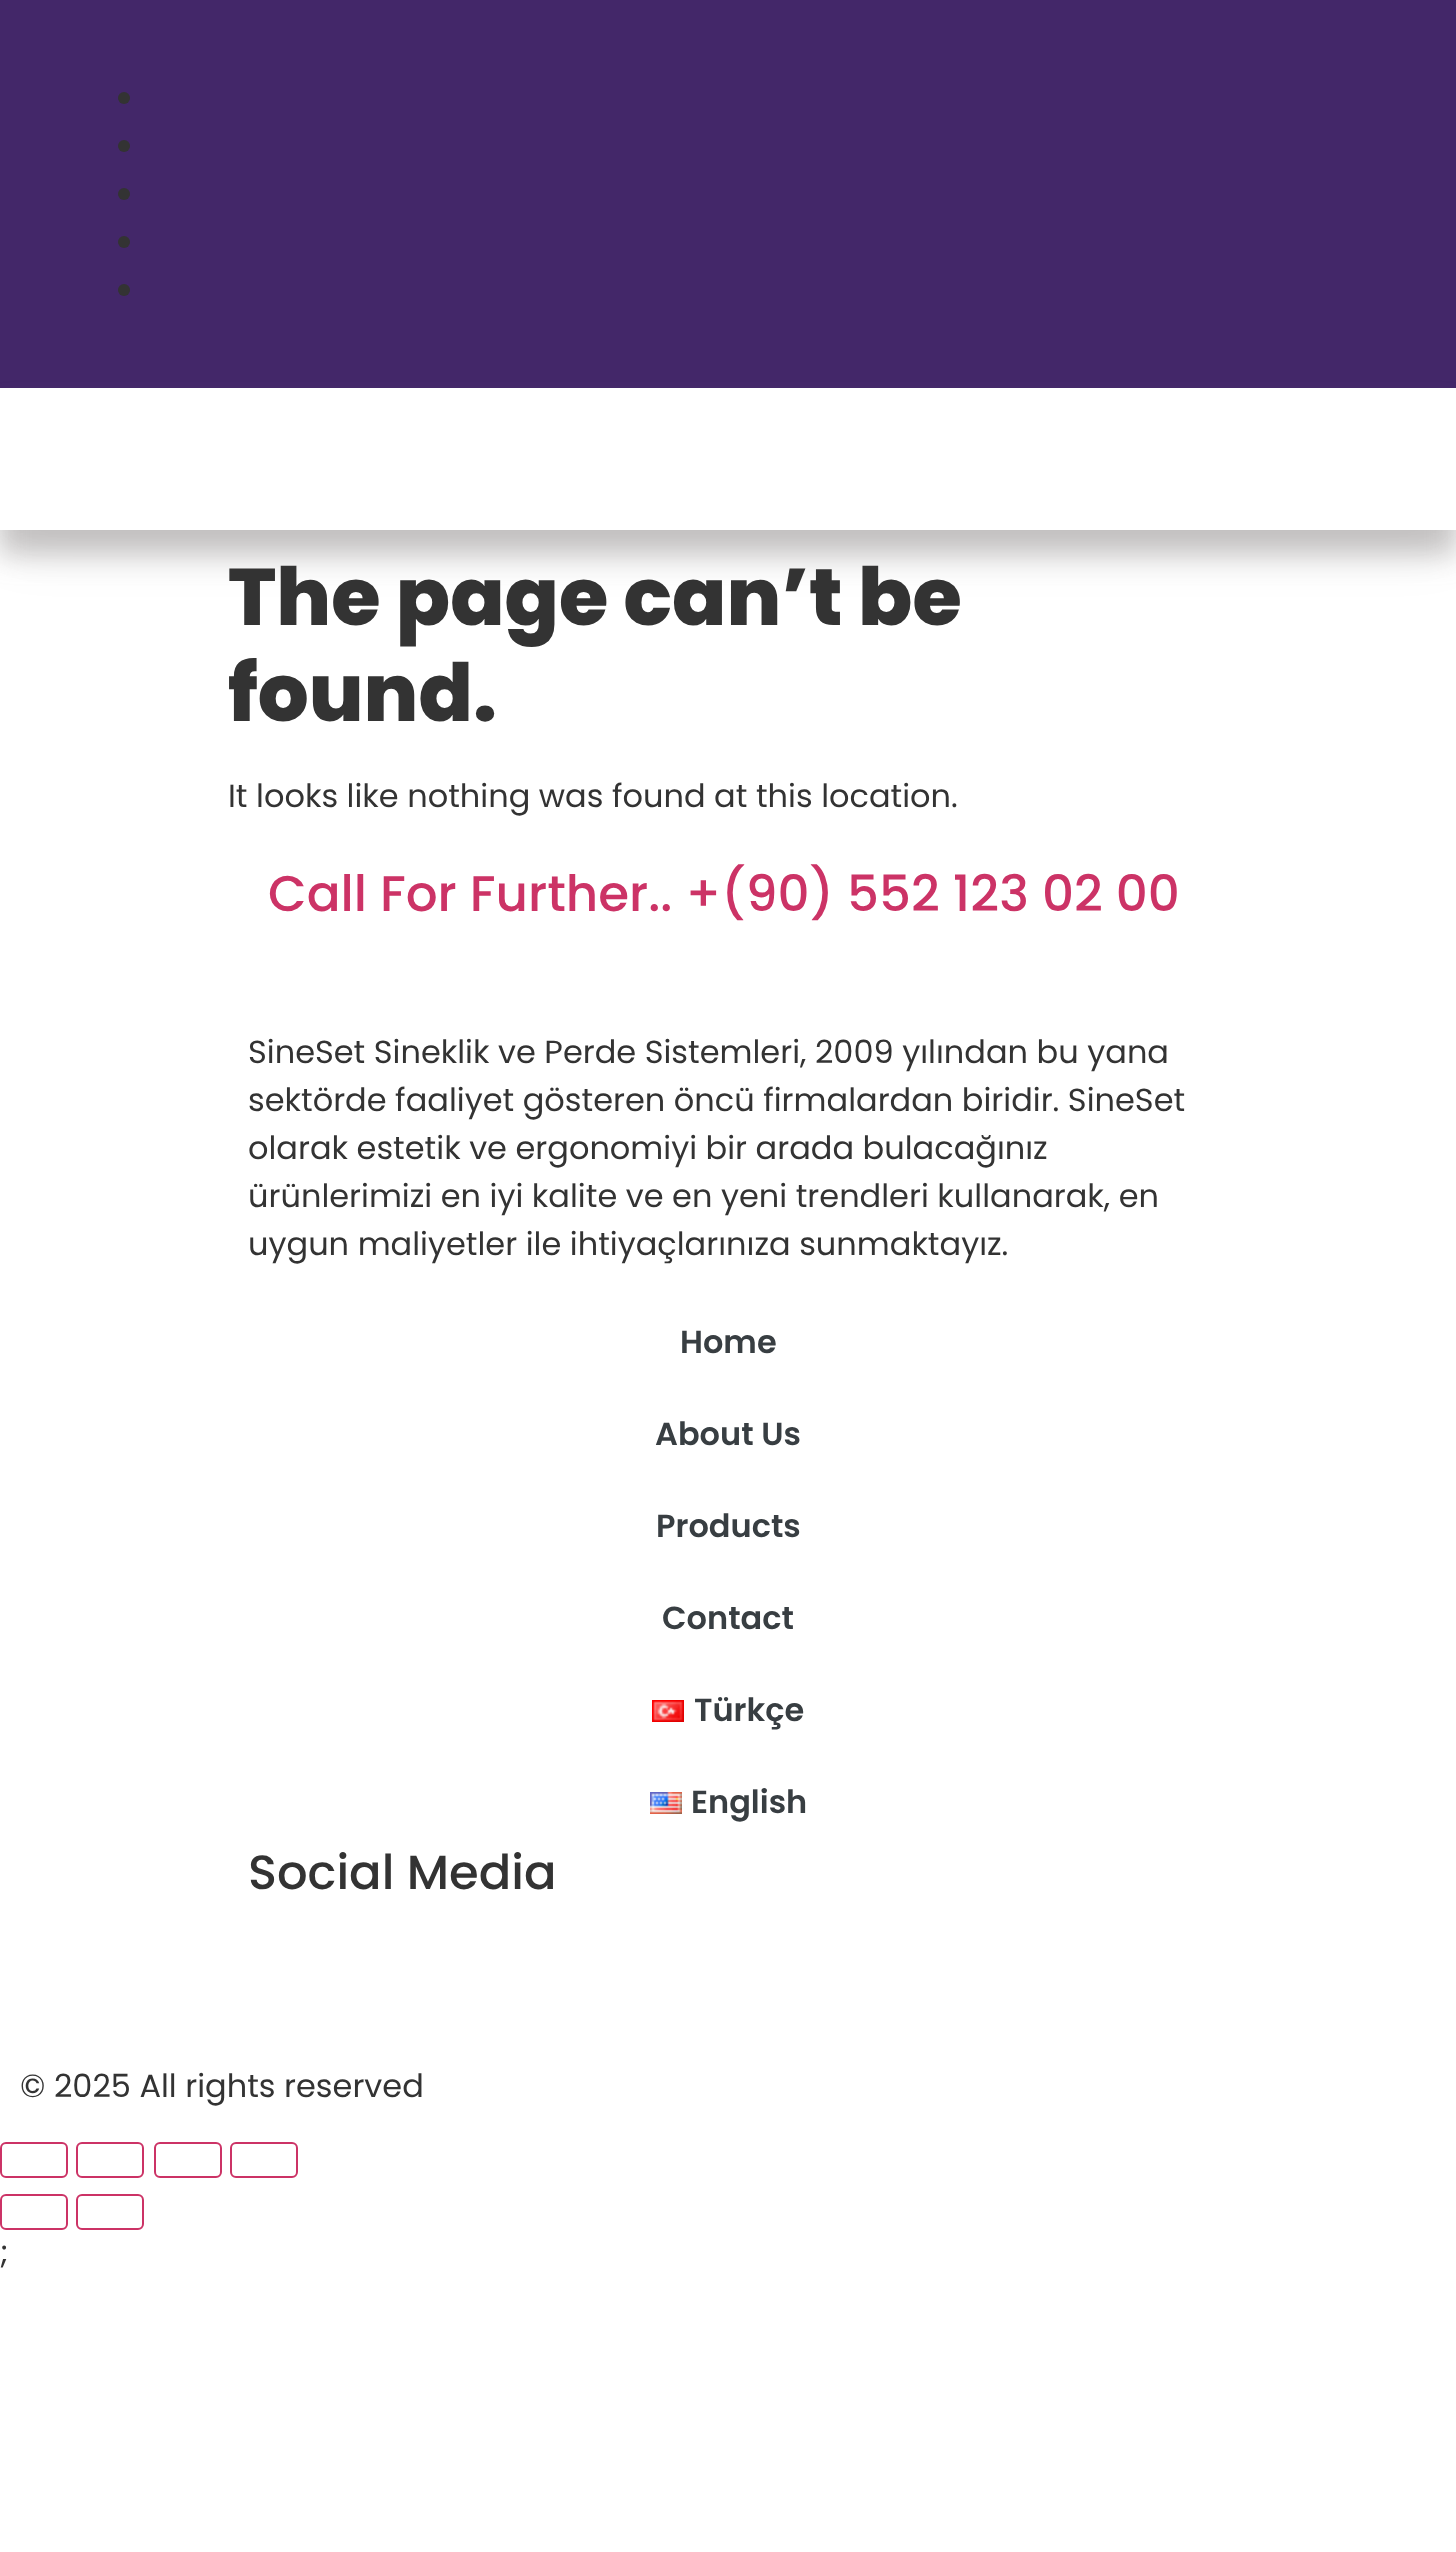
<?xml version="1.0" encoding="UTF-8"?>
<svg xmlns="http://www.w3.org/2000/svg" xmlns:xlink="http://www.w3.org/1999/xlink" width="1456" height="2552">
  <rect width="100%" height="100%" fill="#ffffff" />
  <rect y="10" width="1456" height="530" rx="20" fill="#000000" fill-opacity="0.1" filter="blur(30px)" />
  <rect width="1456" height="388" fill="#432769" />
  <circle cx="124" cy="98" r="6" fill="#333333" />
  <circle cx="124" cy="146" r="6" fill="#333333" />
  <circle cx="124" cy="194" r="6" fill="#333333" />
  <circle cx="124" cy="242" r="6" fill="#333333" />
  <circle cx="124" cy="290" r="6" fill="#333333" />
  <rect y="412" width="1456" height="142" fill="#969191" fill-opacity="0.5" filter="blur(14px)" />
  <rect y="388" width="1456" height="142" fill="#ffffff" />
  <image x="652" y="1700" width="32" height="22" xlink:href="image1.png" />
  <image x="650" y="1792" width="32" height="22" xlink:href="image2.png" />
  <rect x="1" y="2143" width="66" height="34" rx="5" fill="none" stroke="#cc3366" stroke-width="2" />
  <rect x="77" y="2143" width="66" height="34" rx="5" fill="none" stroke="#cc3366" stroke-width="2" />
  <rect x="155" y="2143" width="66" height="34" rx="5" fill="none" stroke="#cc3366" stroke-width="2" />
  <rect x="231" y="2143" width="66" height="34" rx="5" fill="none" stroke="#cc3366" stroke-width="2" />
  <rect x="1" y="2195" width="66" height="34" rx="5" fill="none" stroke="#cc3366" stroke-width="2" />
  <rect x="77" y="2195" width="66" height="34" rx="5" fill="none" stroke="#cc3366" stroke-width="2" />
  <text x="228" y="625" style="font-family: Poppins; font-size: 80px; font-weight: 800; fill: #333333">The page can’t be</text>
  <text x="228" y="721" style="font-family: Poppins; font-size: 80px; font-weight: 800; fill: #333333">found.</text>
  <text x="228" y="807" style="font-family: Poppins; font-size: 32px; fill: #333333">It looks like nothing was found at this location.</text>
  <text x="268" y="911" style="font-family: Poppins; font-size: 50px; font-weight: 500; fill: #cc3366">Call For Further.. +(90) 552 123 02 00</text>
  <text x="248" y="1063" style="font-family: Poppins; font-size: 32px; fill: #333333">SineSet Sineklik ve Perde Sistemleri, 2009 yılından bu yana</text>
  <text x="248" y="1111" style="font-family: Poppins; font-size: 32px; fill: #333333">sektörde faaliyet gösteren öncü firmalardan biridir. SineSet</text>
  <text x="248" y="1159" style="font-family: Poppins; font-size: 32px; fill: #333333">olarak estetik ve ergonomiyi bir arada bulacağınız</text>
  <text x="248" y="1207" style="font-family: Poppins; font-size: 32px; fill: #333333">ürünlerimizi en iyi kalite ve en yeni trendleri kullanarak, en</text>
  <text x="248" y="1255" style="font-family: Poppins; font-size: 32px; fill: #333333">uygun maliyetler ile ihtiyaçlarınıza sunmaktayız.</text>
  <text x="680" y="1353" style="font-family: Poppins; font-size: 32px; font-weight: 600; fill: #383e42">Home</text>
  <text x="655" y="1445" style="font-family: Poppins; font-size: 32px; font-weight: 600; fill: #383e42">About Us</text>
  <text x="656" y="1537" style="font-family: Poppins; font-size: 32px; font-weight: 600; fill: #383e42">Products</text>
  <text x="662" y="1629" style="font-family: Poppins; font-size: 32px; font-weight: 600; fill: #383e42">Contact</text>
  <text x="694" y="1721" style="font-family: Poppins; font-size: 32px; font-weight: 600; fill: #383e42">Türkçe</text>
  <text x="691" y="1813" style="font-family: Poppins; font-size: 32px; font-weight: 600; fill: #383e42">English</text>
  <text x="248" y="1889" style="font-family: Poppins; font-size: 48px; font-weight: 500; fill: #333333">Social Media</text>
  <text x="20" y="2097" style="font-family: Poppins; font-size: 32px; fill: #333333">© 2025 All rights reserved</text>
  <text x="0" y="2263" style="font-family: Poppins; font-size: 32px; fill: #333333">;</text>
</svg>
